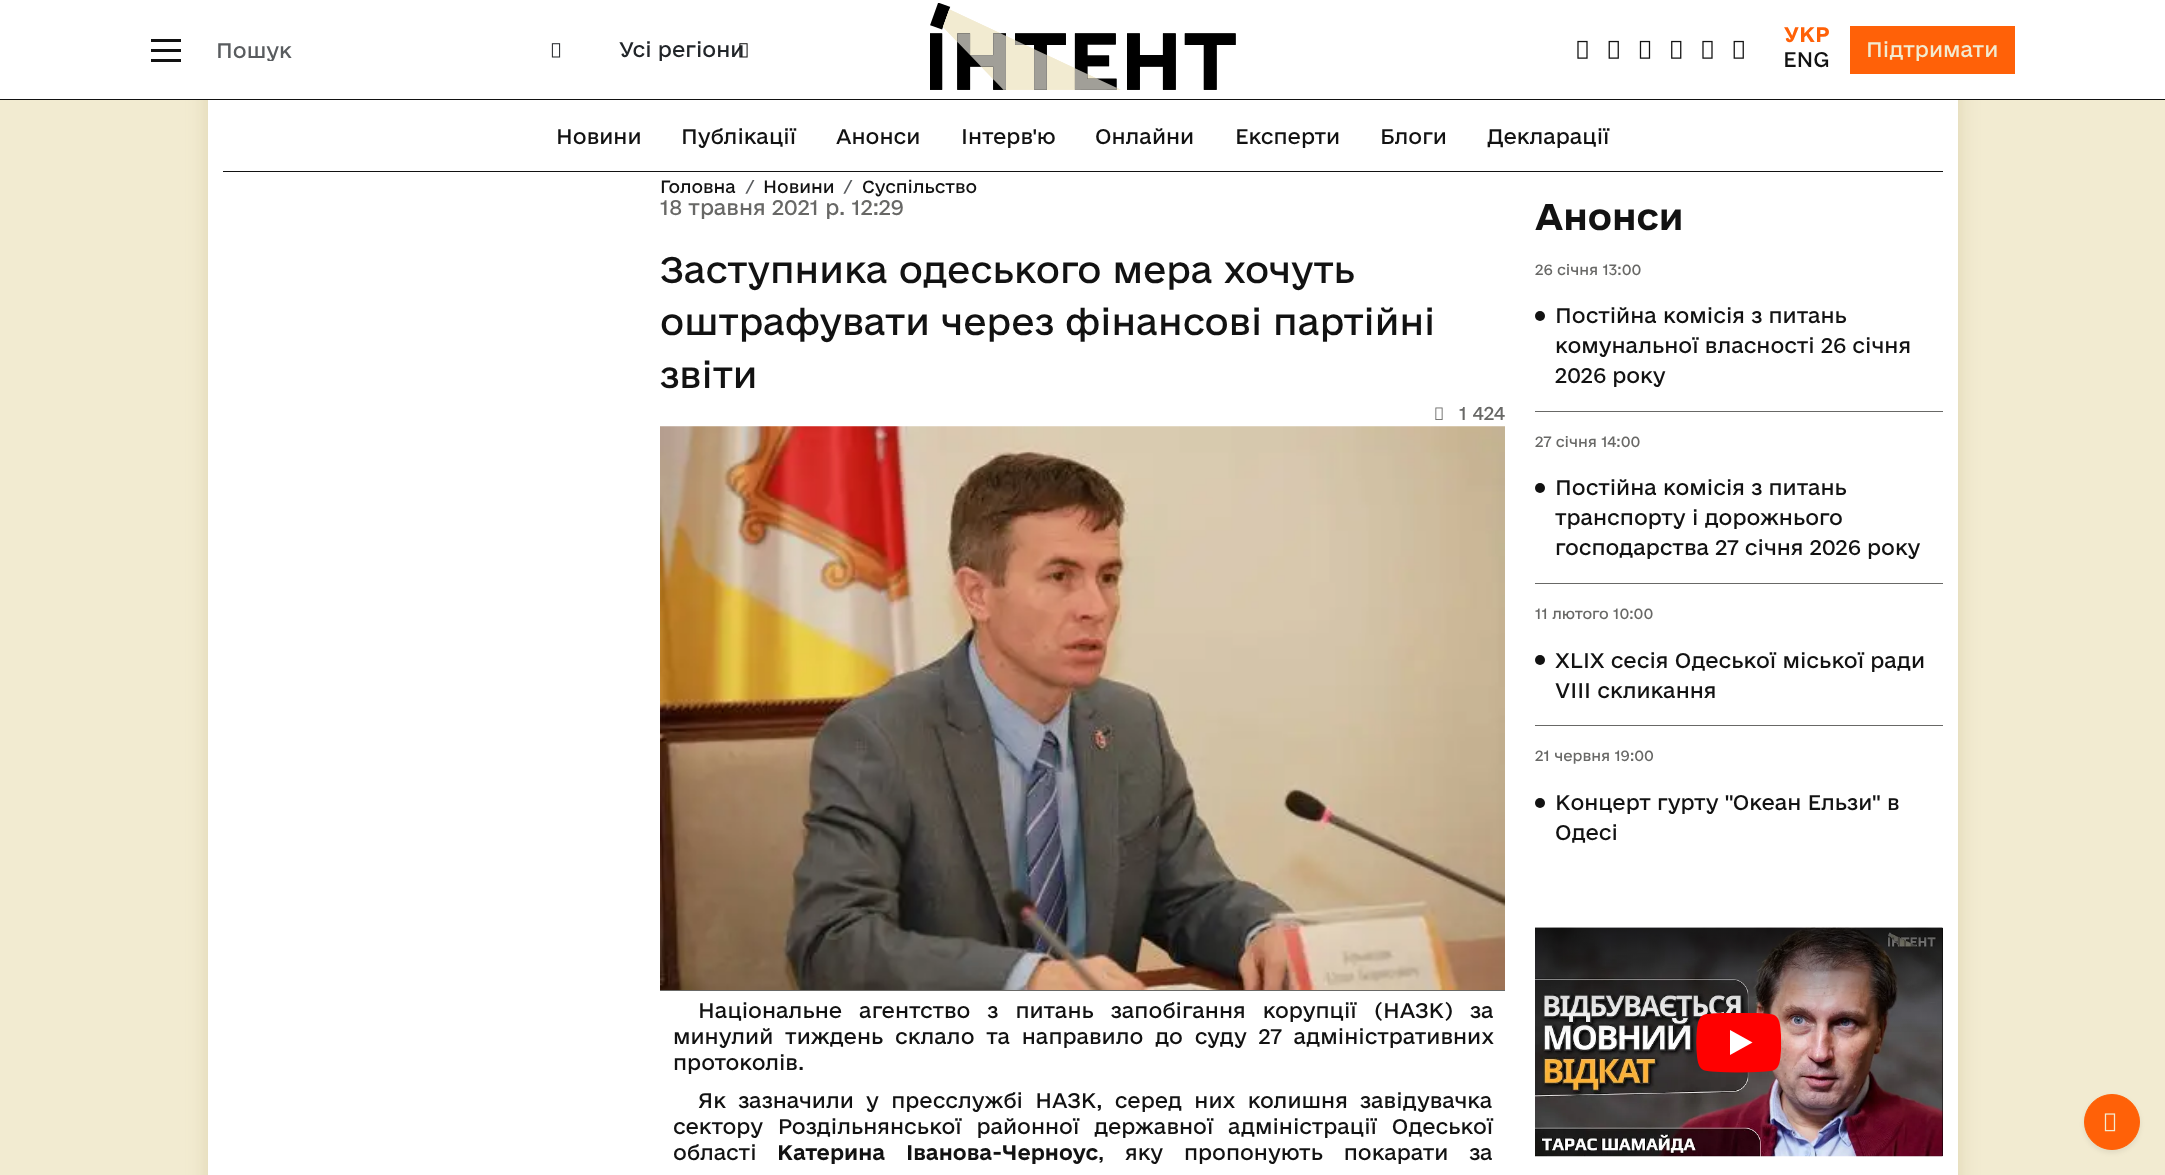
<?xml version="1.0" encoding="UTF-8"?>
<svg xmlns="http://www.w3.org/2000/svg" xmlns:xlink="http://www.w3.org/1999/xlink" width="2165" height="1175">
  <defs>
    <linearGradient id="g1" gradientUnits="userSpaceOnUse" x1="1739" y1="928" x2="1739" y2="1051"><stop offset="0" stop-color="#000000" stop-opacity="0.67" /><stop offset="0.14" stop-color="#000000" stop-opacity="0.54" /><stop offset="0.54" stop-color="#000000" stop-opacity="0.15" /><stop offset="0.72" stop-color="#000000" stop-opacity="0.05" /><stop offset="0.94" stop-color="#000000" stop-opacity="0" /></linearGradient>
    <clipPath id="clip1"><rect x="216" y="38" width="305" height="23" /></clipPath>
  </defs>
  <rect width="100%" height="100%" fill="#f2ebd1" />
  <rect x="208" y="5" width="1750" height="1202" fill="#a5924e" fill-opacity="0.25" filter="blur(10.5px)" />
  <rect x="208" y="100" width="1750" height="1075" fill="#ffffff" />
  <rect width="2165" height="99" fill="#ffffff" />
  <rect y="99" width="2165" height="1" fill="#121212" />
  <rect x="151" y="39" width="30" height="3" fill="#121212" />
  <rect x="151" y="49" width="30" height="3" fill="#121212" />
  <rect x="151" y="59" width="30" height="3" fill="#121212" />
  <image x="551" y="43" width="10" height="15" xlink:href="image1.png" />
  <image x="930" y="3" width="306" height="87" xlink:href="image3.png" />
  <image x="1577" y="40" width="11" height="19" xlink:href="image4.png" />
  <image x="1608" y="40" width="11" height="19" xlink:href="image5.png" />
  <image x="1639" y="40" width="12" height="19" xlink:href="image6.png" />
  <image x="1671" y="40" width="11" height="19" xlink:href="image7.png" />
  <image x="1702" y="40" width="11" height="19" xlink:href="image4.png" />
  <image x="1733" y="40" width="11" height="19" xlink:href="image5.png" />
  <rect x="1850" y="26" width="165" height="48" fill="#ff6108" />
  <rect x="223" y="171" width="1720" height="1" fill="#121212" />
  <rect x="660" y="990" width="845" height="1" fill="#686866" />
  <image x="1435" y="407" width="8" height="13" xlink:href="image8.png" />
  <image x="660" y="426" width="845" height="564" xlink:href="image9.png" />
  <rect x="1535" y="411" width="408" height="1" fill="#686866" />
  <circle cx="1540" cy="316" r="5" fill="#121212" />
  <rect x="1535" y="583" width="408" height="1" fill="#686866" />
  <circle cx="1540" cy="488" r="5" fill="#121212" />
  <rect x="1535" y="725" width="408" height="1" fill="#686866" />
  <circle cx="1540" cy="660" r="5" fill="#121212" />
  <circle cx="1540" cy="803" r="5" fill="#121212" />
  <rect x="1942" y="928" width="1" height="228" fill="#000000" />
  <image x="1535" y="927" width="408" height="230" xlink:href="image10.png" />
  <rect x="1535" y="928" width="408" height="104" fill="url(#g1)" />
  <image x="1696" y="1013" width="85" height="60" xlink:href="image11.png" />
  <rect x="2084" y="1096" width="56" height="57" rx="28" fill="#000000" fill-opacity="0.07" filter="blur(2.5px)" />
  <circle cx="2112" cy="1122" r="27.5" fill="#ff6108" stroke="#ff6108" />
  <image x="2104" y="1113" width="12" height="19" xlink:href="image12.png" />
  <g clip-path="url(#clip1)">
    <text x="216" y="58" style="font-family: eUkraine; font-size: 20px; fill: #595c5f">Пошук</text>
  </g>
  <text x="619" y="57" style="font-family: eUkraine; font-size: 20px; fill: #212529">Усі регіони</text>
  <image x="739" y="43" width="9" height="15" xlink:href="image2.png" />
  <text x="1784" y="42" style="font-family: eUkraine; font-size: 20px; font-weight: bold; fill: #ff6108">УКР</text>
  <text x="1783" y="67" style="font-family: eUkraine; font-size: 20px; fill: #121212">ENG</text>
  <text x="1866" y="57" style="font-family: eUkraine; font-size: 20px; fill: #f2ebd1">Підтримати</text>
  <text x="556" y="144" style="font-family: eUkraine; font-size: 20px; fill: #121212">Новини</text>
  <text x="681" y="144" style="font-family: eUkraine; font-size: 20px; fill: #121212">Публікації</text>
  <text x="836" y="144" style="font-family: eUkraine; font-size: 20px; fill: #121212">Анонси</text>
  <text x="961" y="144" style="font-family: eUkraine; font-size: 20px; fill: #121212">Інтерв'ю</text>
  <text x="1095" y="144" style="font-family: eUkraine; font-size: 20px; fill: #121212">Онлайни</text>
  <text x="1235" y="144" style="font-family: eUkraine; font-size: 20px; fill: #121212">Експерти</text>
  <text x="1380" y="144" style="font-family: eUkraine; font-size: 20px; fill: #121212">Блоги</text>
  <text x="1487" y="144" style="font-family: eUkraine; font-size: 20px; fill: #121212">Декларації</text>
  <text x="660" y="193" style="font-family: eUkraine; font-size: 16.75px; fill: #121212">Головна</text>
  <text x="746" y="193" style="font-family: eUkraine; font-size: 16.75px; fill: #595c5f">/</text>
  <text x="763" y="193" style="font-family: eUkraine; font-size: 16.75px; fill: #121212">Новини</text>
  <text x="844" y="193" style="font-family: eUkraine; font-size: 16.75px; fill: #595c5f">/</text>
  <text x="862" y="193" style="font-family: eUkraine; font-size: 16.75px; fill: #121212">Суспільство</text>
  <text x="660" y="215" style="font-family: eUkraine; font-size: 20px; fill: #686866">18 травня 2021 р. 12:29</text>
  <text x="660" y="283" style="font-family: eUkraine; font-size: 35px; fill: #121212">Заступника одеського мера хочуть</text>
  <text x="660" y="335" style="font-family: eUkraine; font-size: 35px; fill: #121212">оштрафувати через фінансові партійні</text>
  <text x="660" y="388" style="font-family: eUkraine; font-size: 35px; fill: #121212">звіти</text>
  <text x="1459" y="420" style="font-family: eUkraine; font-size: 17.5px; fill: #686866">1 424</text>
  <text x="698" y="1018" word-spacing="10.75" style="font-family: eUkraine; font-size: 20px; fill: #121212">Національне агентство з питань запобігання корупції (НАЗК) за</text>
  <text x="673" y="1044" word-spacing="5.5" style="font-family: eUkraine; font-size: 20px; fill: #121212">минулий тиждень склало та направило до суду 27 адміністративних</text>
  <text x="673" y="1070" style="font-family: eUkraine; font-size: 20px; fill: #121212">протоколів.</text>
  <text x="698" y="1108" word-spacing="6" style="font-family: eUkraine; font-size: 20px; fill: #121212">Як зазначили у пресслужбі НАЗК, серед них колишня завідувачка</text>
  <text x="673" y="1134" word-spacing="8.5" style="font-family: eUkraine; font-size: 20px; fill: #121212">сектору Роздільнянської районної державної адміністрації Одеської</text>
  <text x="673" y="1160" style="font-family: eUkraine; font-size: 20px; fill: #121212">області</text>
  <text x="777" y="1160" word-spacing="14.5" style="font-family: eUkraine; font-size: 20px; font-weight: bold; fill: #121212">Катерина Іванова-Черноус</text>
  <text x="1098" y="1160" word-spacing="14.5" style="font-family: eUkraine; font-size: 20px; fill: #121212">, яку пропонують покарати за</text>
  <text x="1535" y="230" style="font-family: eUkraine; font-size: 35px; font-weight: bold; fill: #121212">Анонси</text>
  <text x="1535" y="275" style="font-family: eUkraine; font-size: 14px; fill: #686866">26 січня 13:00</text>
  <text x="1555" y="323" style="font-family: eUkraine; font-size: 20px; fill: #121212">Постійна комісія з питань</text>
  <text x="1555" y="353" style="font-family: eUkraine; font-size: 20px; fill: #121212">комунальної власності 26 січня</text>
  <text x="1555" y="383" style="font-family: eUkraine; font-size: 20px; fill: #121212">2026 року</text>
  <text x="1535" y="447" style="font-family: eUkraine; font-size: 14px; fill: #686866">27 січня 14:00</text>
  <text x="1555" y="495" style="font-family: eUkraine; font-size: 20px; fill: #121212">Постійна комісія з питань</text>
  <text x="1555" y="525" style="font-family: eUkraine; font-size: 20px; fill: #121212">транспорту і дорожнього</text>
  <text x="1555" y="555" style="font-family: eUkraine; font-size: 20px; fill: #121212">господарства 27 січня 2026 року</text>
  <text x="1535" y="619" style="font-family: eUkraine; font-size: 14px; fill: #686866">11 лютого 10:00</text>
  <text x="1555" y="668" style="font-family: eUkraine; font-size: 20px; fill: #121212">XLIX сесія Одеської міської ради</text>
  <text x="1555" y="698" style="font-family: eUkraine; font-size: 20px; fill: #121212">VІІI скликання</text>
  <text x="1535" y="761" style="font-family: eUkraine; font-size: 14px; fill: #686866">21 червня 19:00</text>
  <text x="1555" y="810" style="font-family: eUkraine; font-size: 20px; fill: #121212">Концерт гурту "Океан Ельзи" в</text>
  <text x="1555" y="840" style="font-family: eUkraine; font-size: 20px; fill: #121212">Одесі</text>
</svg>
